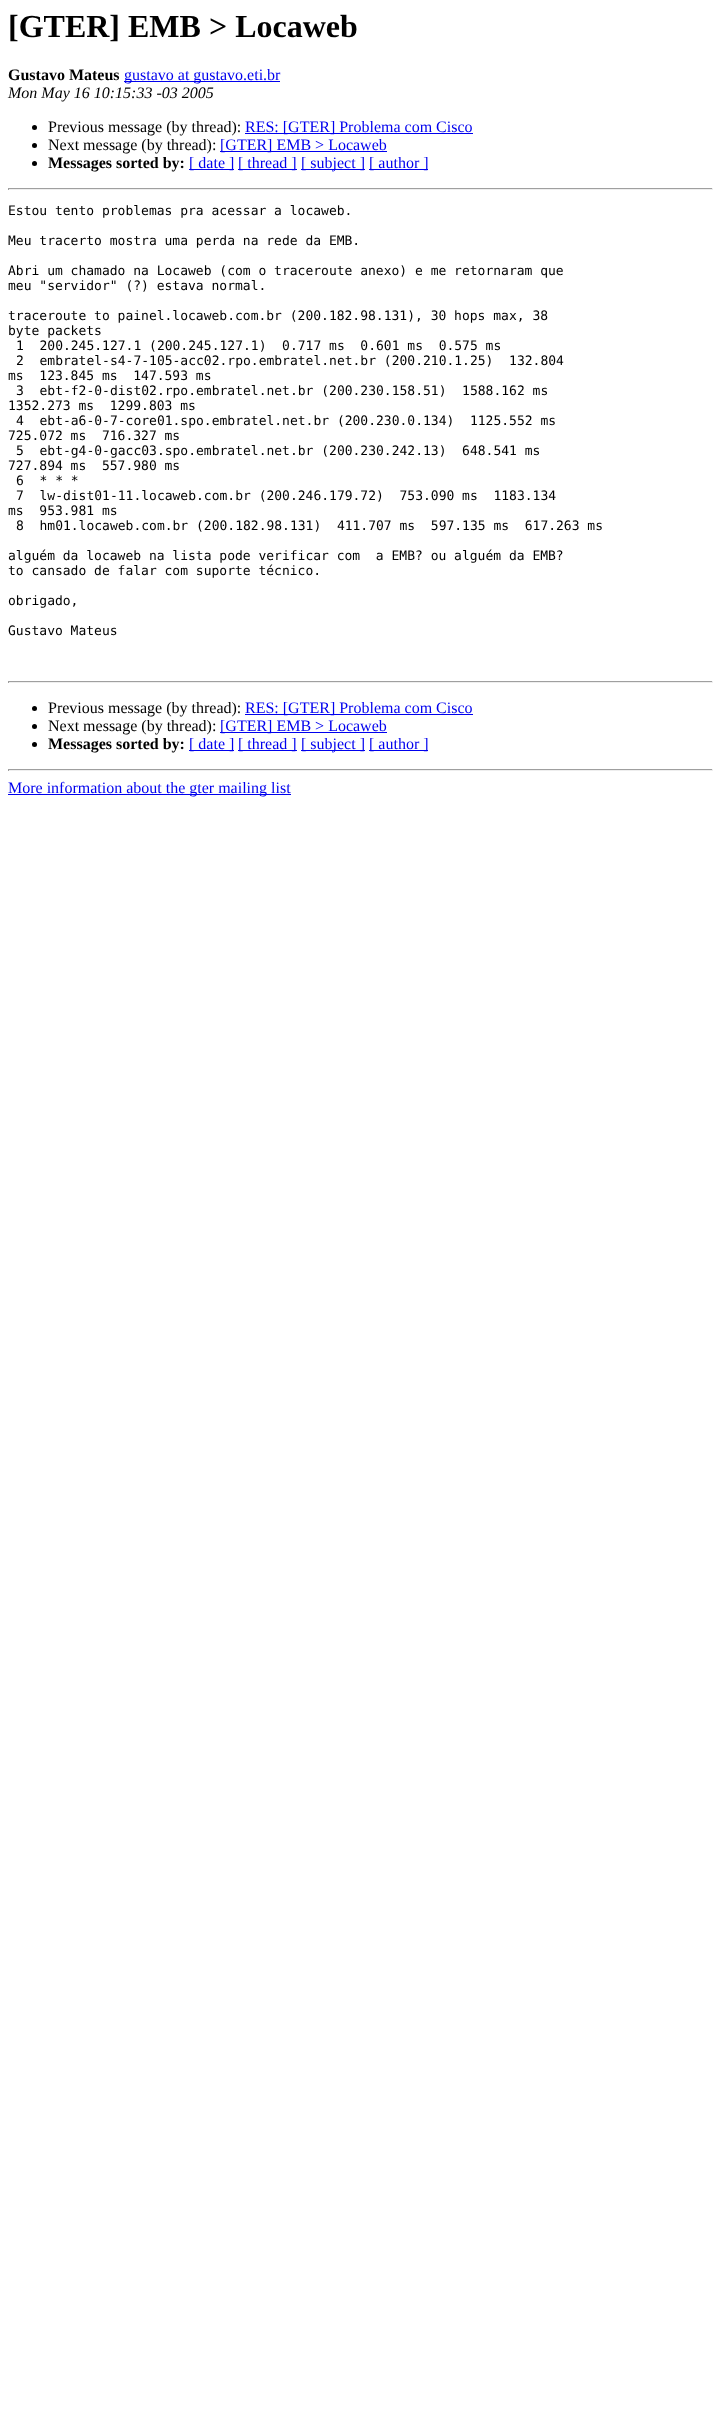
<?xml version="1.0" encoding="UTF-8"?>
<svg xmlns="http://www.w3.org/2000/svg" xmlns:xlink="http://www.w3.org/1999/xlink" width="721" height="2429">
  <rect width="100%" height="100%" fill="#ffffff" />
  <rect x="124" y="81" width="156" height="1" fill="#0000ee" />
  <circle cx="34.5" cy="127.5" r="2.5" fill="#000000" />
  <rect x="245" y="133" width="228" height="1" fill="#0000ee" />
  <circle cx="34.5" cy="145.5" r="2.5" fill="#000000" />
  <rect x="220" y="151" width="167" height="1" fill="#0000ee" />
  <circle cx="34.5" cy="163.5" r="2.5" fill="#000000" />
  <rect x="189" y="169" width="45" height="1" fill="#0000ee" />
  <rect x="238" y="169" width="59" height="1" fill="#0000ee" />
  <rect x="301" y="169" width="64" height="1" fill="#0000ee" />
  <rect x="369" y="169" width="59" height="1" fill="#0000ee" />
  <rect x="8" y="188" width="705" height="1" fill="#9f9f9f" />
  <rect x="712" y="188" width="1" height="2" fill="#eeeeee" />
  <rect x="8" y="189" width="705" height="1" fill="#eeeeee" />
  <rect x="8" y="188" width="1" height="2" fill="#9f9f9f" />
  <rect x="8" y="681" width="705" height="1" fill="#9f9f9f" />
  <rect x="712" y="681" width="1" height="2" fill="#eeeeee" />
  <rect x="8" y="682" width="705" height="1" fill="#eeeeee" />
  <rect x="8" y="681" width="1" height="2" fill="#9f9f9f" />
  <circle cx="34.5" cy="708.5" r="2.5" fill="#000000" />
  <rect x="245" y="714" width="228" height="1" fill="#0000ee" />
  <circle cx="34.5" cy="726.5" r="2.5" fill="#000000" />
  <rect x="220" y="732" width="167" height="1" fill="#0000ee" />
  <circle cx="34.5" cy="744.5" r="2.5" fill="#000000" />
  <rect x="189" y="750" width="45" height="1" fill="#0000ee" />
  <rect x="238" y="750" width="59" height="1" fill="#0000ee" />
  <rect x="301" y="750" width="64" height="1" fill="#0000ee" />
  <rect x="369" y="750" width="59" height="1" fill="#0000ee" />
  <rect x="8" y="769" width="705" height="1" fill="#9f9f9f" />
  <rect x="712" y="769" width="1" height="2" fill="#eeeeee" />
  <rect x="8" y="770" width="705" height="1" fill="#eeeeee" />
  <rect x="8" y="769" width="1" height="2" fill="#9f9f9f" />
  <rect x="8" y="794" width="283" height="1" fill="#0000ee" />
  <text x="8" y="37" style="font-family: Liberation Serif; font-size: 32px; font-weight: bold; fill: #000000">[GTER] EMB &gt; Locaweb</text>
  <text x="8" y="80" style="font-family: Liberation Serif; font-size: 16px; font-weight: bold; fill: #000000">Gustavo Mateus</text>
  <text x="124" y="80" style="font-family: Liberation Serif; font-size: 16px; fill: #0000ee">gustavo at gustavo.eti.br</text>
  <text x="8" y="98" style="font-family: Liberation Serif; font-size: 16px; font-style: italic; fill: #000000">Mon May 16 10:15:33 -03 2005</text>
  <text x="48" y="132" style="font-family: Liberation Serif; font-size: 16px; fill: #000000">Previous message (by thread):</text>
  <text x="245" y="132" style="font-family: Liberation Serif; font-size: 16px; fill: #0000ee">RES: [GTER] Problema com Cisco</text>
  <text x="48" y="150" style="font-family: Liberation Serif; font-size: 16px; fill: #000000">Next message (by thread):</text>
  <text x="220" y="150" style="font-family: Liberation Serif; font-size: 16px; fill: #0000ee">[GTER] EMB &gt; Locaweb</text>
  <text x="48" y="168" style="font-family: Liberation Serif; font-size: 16px; font-weight: bold; fill: #000000">Messages sorted by:</text>
  <text x="189" y="168" style="font-family: Liberation Serif; font-size: 16px; fill: #0000ee">[ date ]</text>
  <text x="238" y="168" style="font-family: Liberation Serif; font-size: 16px; fill: #0000ee">[ thread ]</text>
  <text x="301" y="168" style="font-family: Liberation Serif; font-size: 16px; fill: #0000ee">[ subject ]</text>
  <text x="369" y="168" style="font-family: Liberation Serif; font-size: 16px; fill: #0000ee">[ author ]</text>
  <text x="8" y="215" style="font-family: DejaVu Sans Mono; font-size: 13px; fill: #000000">Estou tento problemas pra acessar a locaweb.</text>
  <text x="8" y="245" style="font-family: DejaVu Sans Mono; font-size: 13px; fill: #000000">Meu tracerto mostra uma perda na rede da EMB.</text>
  <text x="8" y="275" style="font-family: DejaVu Sans Mono; font-size: 13px; fill: #000000">Abri um chamado na Locaweb (com o traceroute anexo) e me retornaram que</text>
  <text x="8" y="290" style="font-family: DejaVu Sans Mono; font-size: 13px; fill: #000000">meu "servidor" (?) estava normal.</text>
  <text x="8" y="320" style="font-family: DejaVu Sans Mono; font-size: 13px; fill: #000000">traceroute to painel.locaweb.com.br (200.182.98.131), 30 hops max, 38</text>
  <text x="8" y="335" style="font-family: DejaVu Sans Mono; font-size: 13px; fill: #000000">byte packets</text>
  <text x="16" y="350" style="font-family: DejaVu Sans Mono; font-size: 13px; fill: #000000" xml:space="preserve">1  200.245.127.1 (200.245.127.1)  0.717 ms  0.601 ms  0.575 ms</text>
  <text x="16" y="365" style="font-family: DejaVu Sans Mono; font-size: 13px; fill: #000000" xml:space="preserve">2  embratel-s4-7-105-acc02.rpo.embratel.net.br (200.210.1.25)  132.804</text>
  <text x="8" y="380" style="font-family: DejaVu Sans Mono; font-size: 13px; fill: #000000" xml:space="preserve">ms  123.845 ms  147.593 ms</text>
  <text x="16" y="395" style="font-family: DejaVu Sans Mono; font-size: 13px; fill: #000000" xml:space="preserve">3  ebt-f2-0-dist02.rpo.embratel.net.br (200.230.158.51)  1588.162 ms</text>
  <text x="8" y="410" style="font-family: DejaVu Sans Mono; font-size: 13px; fill: #000000" xml:space="preserve">1352.273 ms  1299.803 ms</text>
  <text x="16" y="425" style="font-family: DejaVu Sans Mono; font-size: 13px; fill: #000000" xml:space="preserve">4  ebt-a6-0-7-core01.spo.embratel.net.br (200.230.0.134)  1125.552 ms</text>
  <text x="8" y="440" style="font-family: DejaVu Sans Mono; font-size: 13px; fill: #000000" xml:space="preserve">725.072 ms  716.327 ms</text>
  <text x="16" y="455" style="font-family: DejaVu Sans Mono; font-size: 13px; fill: #000000" xml:space="preserve">5  ebt-g4-0-gacc03.spo.embratel.net.br (200.230.242.13)  648.541 ms</text>
  <text x="8" y="470" style="font-family: DejaVu Sans Mono; font-size: 13px; fill: #000000" xml:space="preserve">727.894 ms  557.980 ms</text>
  <text x="16" y="485" style="font-family: DejaVu Sans Mono; font-size: 13px; fill: #000000" xml:space="preserve">6  * * *</text>
  <text x="16" y="500" style="font-family: DejaVu Sans Mono; font-size: 13px; fill: #000000" xml:space="preserve">7  lw-dist01-11.locaweb.com.br (200.246.179.72)  753.090 ms  1183.134</text>
  <text x="8" y="515" style="font-family: DejaVu Sans Mono; font-size: 13px; fill: #000000" xml:space="preserve">ms  953.981 ms</text>
  <text x="16" y="530" style="font-family: DejaVu Sans Mono; font-size: 13px; fill: #000000" xml:space="preserve">8  hm01.locaweb.com.br (200.182.98.131)  411.707 ms  597.135 ms  617.263 ms</text>
  <text x="8" y="560" style="font-family: DejaVu Sans Mono; font-size: 13px; fill: #000000" xml:space="preserve">alguém da locaweb na lista pode verificar com  a EMB? ou alguém da EMB?</text>
  <text x="8" y="575" style="font-family: DejaVu Sans Mono; font-size: 13px; fill: #000000">to cansado de falar com suporte técnico.</text>
  <text x="8" y="605" style="font-family: DejaVu Sans Mono; font-size: 13px; fill: #000000">obrigado,</text>
  <text x="8" y="635" style="font-family: DejaVu Sans Mono; font-size: 13px; fill: #000000">Gustavo Mateus</text>
  <text x="48" y="713" style="font-family: Liberation Serif; font-size: 16px; fill: #000000">Previous message (by thread):</text>
  <text x="245" y="713" style="font-family: Liberation Serif; font-size: 16px; fill: #0000ee">RES: [GTER] Problema com Cisco</text>
  <text x="48" y="731" style="font-family: Liberation Serif; font-size: 16px; fill: #000000">Next message (by thread):</text>
  <text x="220" y="731" style="font-family: Liberation Serif; font-size: 16px; fill: #0000ee">[GTER] EMB &gt; Locaweb</text>
  <text x="48" y="749" style="font-family: Liberation Serif; font-size: 16px; font-weight: bold; fill: #000000">Messages sorted by:</text>
  <text x="189" y="749" style="font-family: Liberation Serif; font-size: 16px; fill: #0000ee">[ date ]</text>
  <text x="238" y="749" style="font-family: Liberation Serif; font-size: 16px; fill: #0000ee">[ thread ]</text>
  <text x="301" y="749" style="font-family: Liberation Serif; font-size: 16px; fill: #0000ee">[ subject ]</text>
  <text x="369" y="749" style="font-family: Liberation Serif; font-size: 16px; fill: #0000ee">[ author ]</text>
  <text x="8" y="793" style="font-family: Liberation Serif; font-size: 16px; fill: #0000ee">More information about the gter mailing list</text>
</svg>
